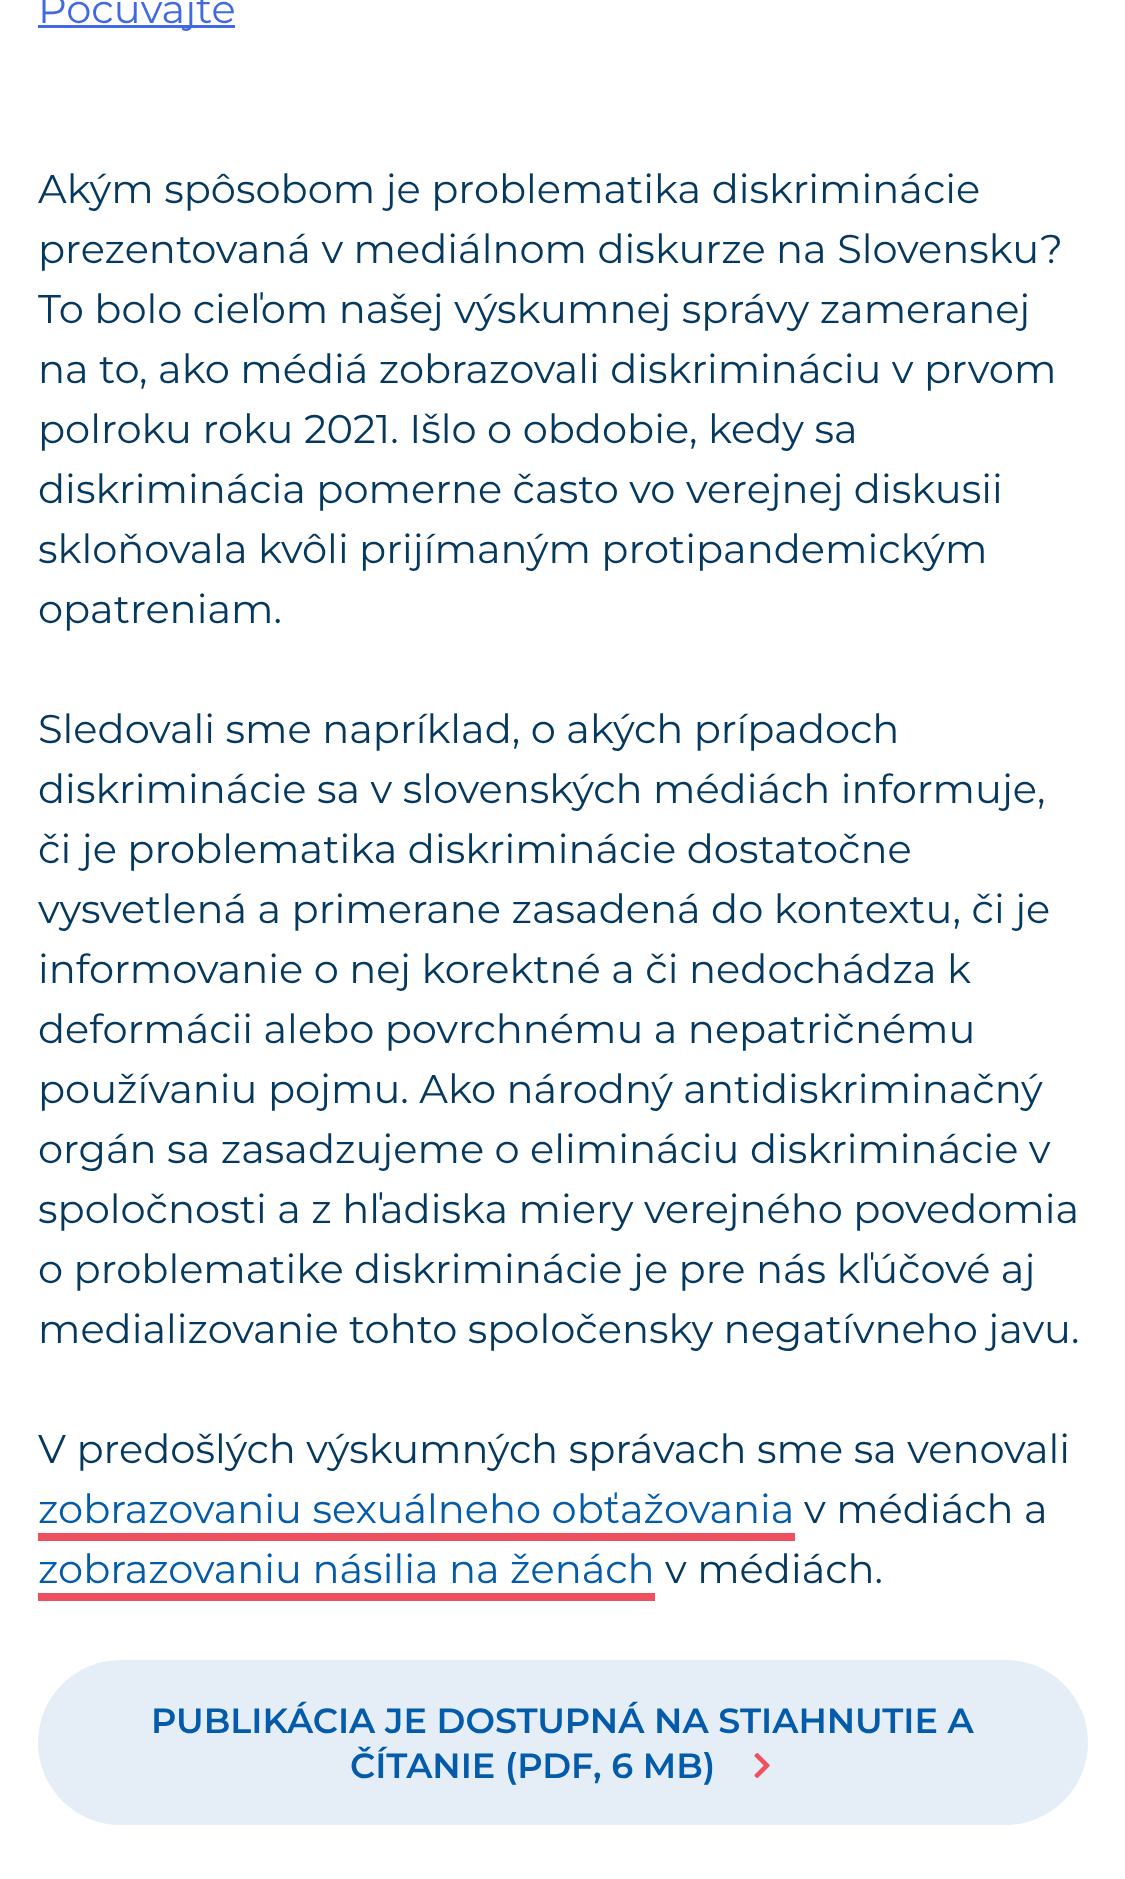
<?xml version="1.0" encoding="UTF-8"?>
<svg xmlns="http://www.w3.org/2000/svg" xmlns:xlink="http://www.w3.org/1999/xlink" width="1125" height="1879">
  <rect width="100%" height="100%" fill="#ffffff" />
  <rect x="38" y="25" width="197" height="3" fill="#4169e1" />
  <rect x="38" y="1533" width="757" height="8" fill="#ef505f" />
  <rect x="38" y="1593" width="617" height="8" fill="#ef505f" />
  <rect x="38" y="1660" width="1050" height="165" rx="82.5" fill="#e5eef6" />
  <image x="754" y="1753" width="16" height="25" xlink:href="image1.png" />
  <text x="38" y="23" style="font-family: Montserrat; font-size: 40px; fill: #4169e1">Počúvajte</text>
  <text x="38" y="203" style="font-family: Montserrat; font-size: 40px; fill: #05385e">Akým spôsobom je problematika diskriminácie</text>
  <text x="38" y="263" style="font-family: Montserrat; font-size: 40px; fill: #05385e">prezentovaná v mediálnom diskurze na Slovensku?</text>
  <text x="38" y="323" style="font-family: Montserrat; font-size: 40px; fill: #05385e">To bolo cieľom našej výskumnej správy zameranej</text>
  <text x="38" y="383" style="font-family: Montserrat; font-size: 40px; fill: #05385e">na to, ako médiá zobrazovali diskrimináciu v prvom</text>
  <text x="38" y="443" style="font-family: Montserrat; font-size: 40px; fill: #05385e">polroku roku 2021. Išlo o obdobie, kedy sa</text>
  <text x="38" y="503" style="font-family: Montserrat; font-size: 40px; fill: #05385e">diskriminácia pomerne často vo verejnej diskusii</text>
  <text x="38" y="563" style="font-family: Montserrat; font-size: 40px; fill: #05385e">skloňovala kvôli prijímaným protipandemickým</text>
  <text x="38" y="623" style="font-family: Montserrat; font-size: 40px; fill: #05385e">opatreniam.</text>
  <text x="38" y="743" style="font-family: Montserrat; font-size: 40px; fill: #05385e">Sledovali sme napríklad, o akých prípadoch</text>
  <text x="38" y="803" style="font-family: Montserrat; font-size: 40px; fill: #05385e">diskriminácie sa v slovenských médiách informuje,</text>
  <text x="38" y="863" style="font-family: Montserrat; font-size: 40px; fill: #05385e">či je problematika diskriminácie dostatočne</text>
  <text x="38" y="923" style="font-family: Montserrat; font-size: 40px; fill: #05385e">vysvetlená a primerane zasadená do kontextu, či je</text>
  <text x="38" y="983" style="font-family: Montserrat; font-size: 40px; fill: #05385e">informovanie o nej korektné a či nedochádza k</text>
  <text x="38" y="1043" style="font-family: Montserrat; font-size: 40px; fill: #05385e">deformácii alebo povrchnému a nepatričnému</text>
  <text x="38" y="1103" style="font-family: Montserrat; font-size: 40px; fill: #05385e">používaniu pojmu. Ako národný antidiskriminačný</text>
  <text x="38" y="1163" style="font-family: Montserrat; font-size: 40px; fill: #05385e">orgán sa zasadzujeme o elimináciu diskriminácie v</text>
  <text x="38" y="1223" style="font-family: Montserrat; font-size: 40px; fill: #05385e">spoločnosti a z hľadiska miery verejného povedomia</text>
  <text x="38" y="1283" style="font-family: Montserrat; font-size: 40px; fill: #05385e">o problematike diskriminácie je pre nás kľúčové aj</text>
  <text x="38" y="1343" style="font-family: Montserrat; font-size: 40px; fill: #05385e">medializovanie tohto spoločensky negatívneho javu.</text>
  <text x="38" y="1463" style="font-family: Montserrat; font-size: 40px; fill: #05385e">V predošlých výskumných správach sme sa venovali</text>
  <text x="38" y="1523" style="font-family: Montserrat; font-size: 40px; fill: #035ba9">zobrazovaniu sexuálneho obťažovania</text>
  <text x="804" y="1523" style="font-family: Montserrat; font-size: 40px; fill: #05385e">v médiách a</text>
  <text x="38" y="1583" style="font-family: Montserrat; font-size: 40px; fill: #035ba9">zobrazovaniu násilia na ženách</text>
  <text x="665" y="1583" style="font-family: Montserrat; font-size: 40px; fill: #05385e">v médiách.</text>
  <text x="151" y="1733" style="font-family: Montserrat; font-size: 35px; font-weight: 600; fill: #035ba9">PUBLIKÁCIA JE DOSTUPNÁ NA STIAHNUTIE A</text>
  <text x="350" y="1778" style="font-family: Montserrat; font-size: 35px; font-weight: 600; fill: #035ba9">ČÍTANIE (PDF, 6 MB)</text>
</svg>
